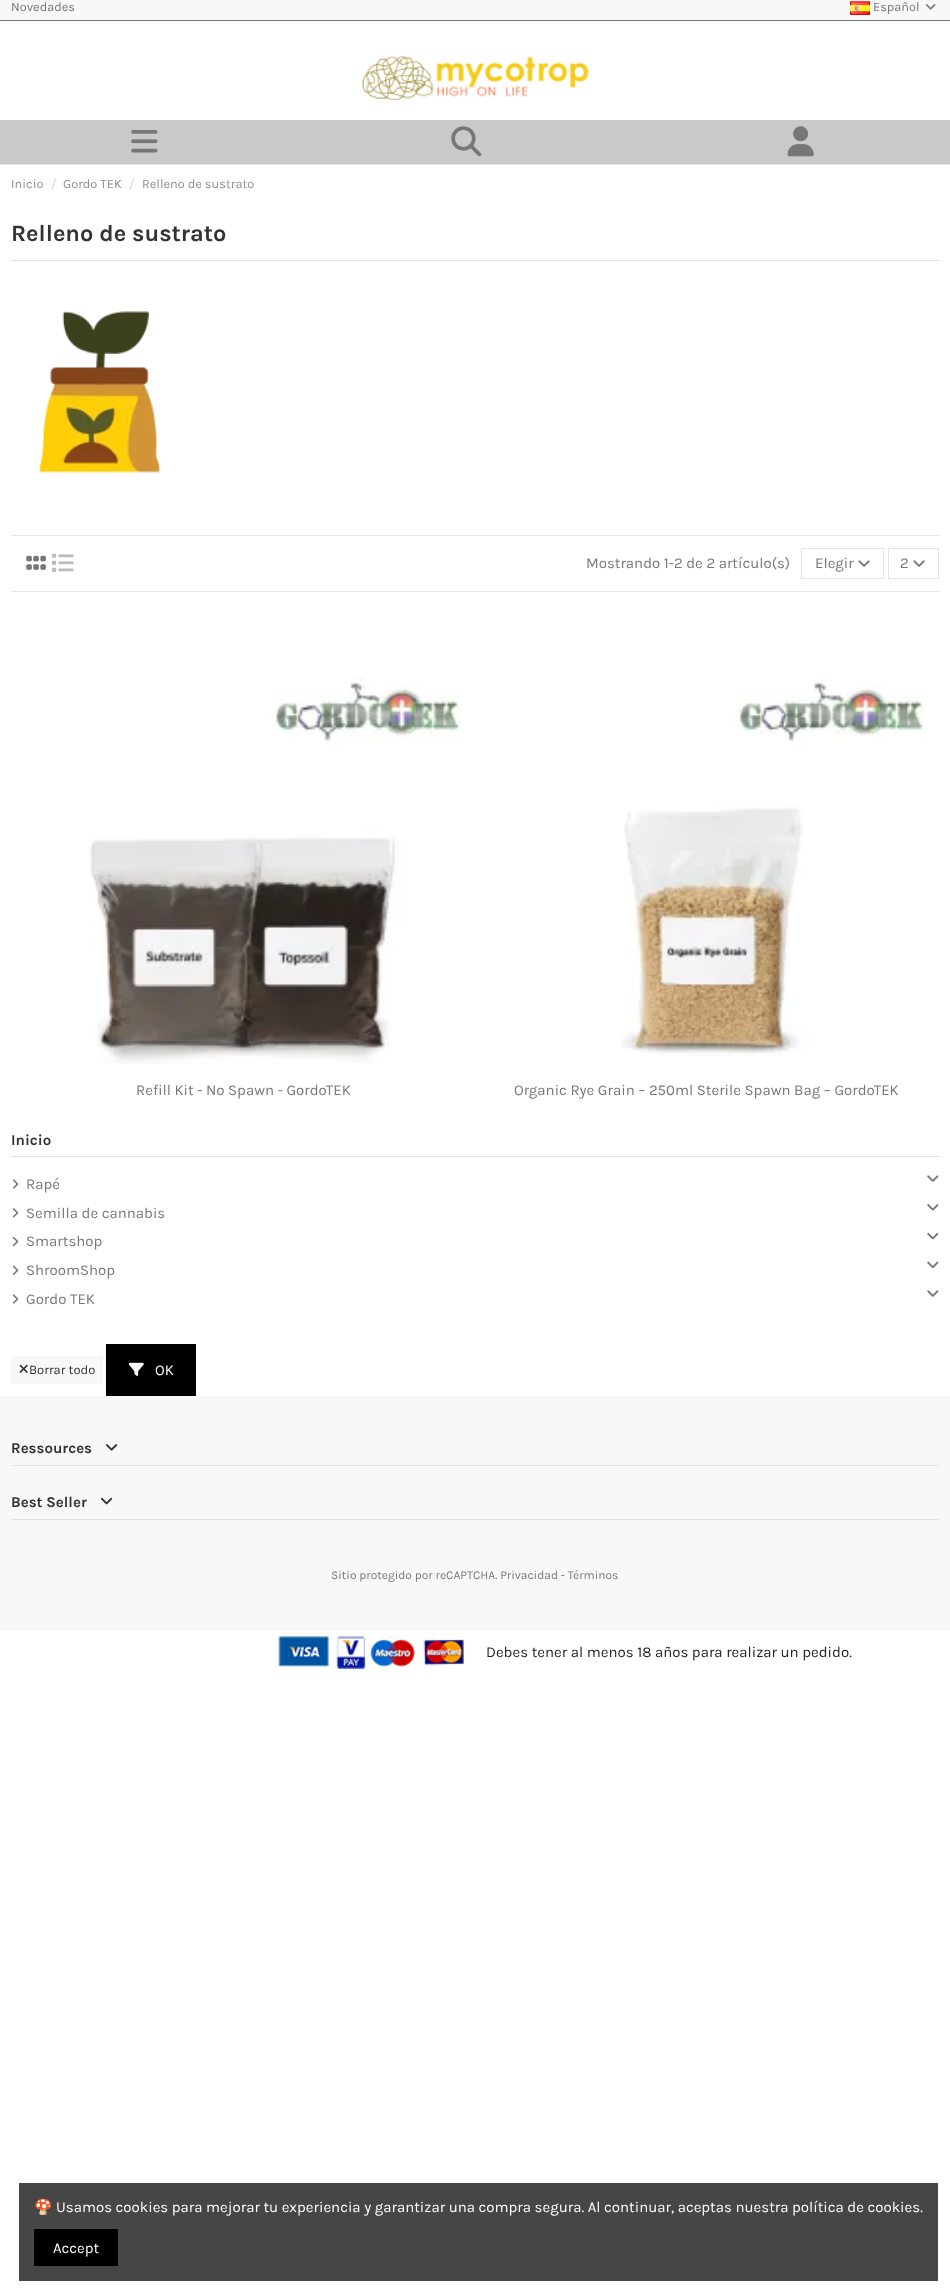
<?xml version="1.0" encoding="UTF-8"?>
<svg xmlns="http://www.w3.org/2000/svg" xmlns:xlink="http://www.w3.org/1999/xlink" width="950" height="2296">
  <rect width="100%" height="100%" fill="#ffffff" />
  <rect width="950" height="20" fill="#f8f8f8" />
  <rect y="20" width="950" height="1" fill="#777777" />
  <image x="850" y="1" width="20" height="14" xlink:href="image1.png" />
  <image x="925" y="4" width="11" height="6" xlink:href="image2.png" />
  <rect y="164" width="950" height="1" fill="#e3e3e3" />
  <image x="362" y="56" width="227" height="45" xlink:href="image3.png" />
  <rect y="120" width="950" height="44" fill="#c9c9c9" />
  <image x="131" y="130" width="27" height="23" xlink:href="image4.png" />
  <image x="451" y="126" width="31" height="31" xlink:href="image5.png" />
  <image x="787" y="126" width="27" height="31" xlink:href="image6.png" />
  <rect x="11" y="260" width="928" height="1" fill="#e3e3e3" />
  <image x="38" y="311" width="123" height="162" xlink:href="image7.png" />
  <rect x="11" y="535" width="928" height="1" fill="#e7e7e7" />
  <rect x="11" y="591" width="928" height="1" fill="#e7e7e7" />
  <image x="26" y="555" width="20" height="15" xlink:href="image8.png" />
  <image x="52" y="553" width="22" height="19" xlink:href="image9.png" />
  <rect x="801.5" y="548.5" width="82" height="30" fill="none" stroke="#e3e3e3" />
  <image x="858" y="560" width="12" height="7" xlink:href="image10.png" />
  <rect x="888.5" y="548.5" width="50" height="30" fill="none" stroke="#e3e3e3" />
  <image x="913" y="560" width="12" height="7" xlink:href="image10.png" />
  <image x="89" y="678" width="372" height="386" xlink:href="image11.png" />
  <image x="621" y="678" width="303" height="378" xlink:href="image12.png" />
  <rect x="11" y="1156" width="928" height="1" fill="#e3e3e3" />
  <image x="12" y="1179" width="7" height="10" xlink:href="image13.png" />
  <image x="927" y="1175" width="12" height="7" xlink:href="image14.png" />
  <image x="12" y="1208" width="7" height="10" xlink:href="image15.png" />
  <image x="927" y="1204" width="12" height="7" xlink:href="image16.png" />
  <image x="12" y="1236" width="7" height="11" xlink:href="image17.png" />
  <image x="927" y="1232" width="12" height="8" xlink:href="image18.png" />
  <image x="12" y="1265" width="7" height="10" xlink:href="image19.png" />
  <image x="927" y="1261" width="12" height="8" xlink:href="image20.png" />
  <image x="12" y="1294" width="7" height="10" xlink:href="image13.png" />
  <image x="927" y="1290" width="12" height="7" xlink:href="image14.png" />
  <rect x="11" y="1356" width="92" height="28" fill="#f8f8f8" />
  <image x="19" y="1364" width="9" height="9" xlink:href="image21.png" />
  <rect x="106" y="1344" width="90" height="52" fill="#000000" />
  <image x="128" y="1362" width="16" height="14" xlink:href="image22.png" />
  <rect y="1396" width="950" height="235" fill="#f8f8f8" />
  <rect x="11" y="1465" width="928" height="1" fill="#e3e3e3" />
  <image x="106" y="1444" width="12" height="7" xlink:href="image23.png" />
  <rect x="11" y="1519" width="928" height="1" fill="#e3e3e3" />
  <image x="101" y="1497" width="12" height="8" xlink:href="image24.png" />
  <image x="278" y="1636" width="186" height="33" xlink:href="image25.png" />
  <rect x="19" y="2183" width="919" height="98" fill="#464646" />
  <rect x="34" y="2229" width="84" height="37" fill="#000000" />
  <text x="11" y="11" style="font-family: Karla; font-size: 12.75px; fill: #777777">Novedades</text>
  <text x="873" y="11" style="font-family: Karla; font-size: 12.75px; fill: #777777">Español</text>
  <text x="11" y="188" style="font-family: Karla; font-size: 12.75px; fill: #8f8f8f">Inicio</text>
  <text x="51" y="188" style="font-family: Karla; font-size: 12.75px; fill: #d2d2d2">/</text>
  <text x="63" y="188" style="font-family: Karla; font-size: 12.75px; fill: #8f8f8f">Gordo TEK</text>
  <text x="129" y="188" style="font-family: Karla; font-size: 12.75px; fill: #d2d2d2">/</text>
  <text x="142" y="188" style="font-family: Karla; font-size: 12.75px; fill: #8f8f8f">Relleno de sustrato</text>
  <text x="11" y="241" style="font-family: Karla; font-size: 23.5px; font-weight: bold; fill: #333333">Relleno de sustrato</text>
  <text x="586" y="568" style="font-family: Karla; font-size: 15px; fill: #777777">Mostrando 1-2 de 2 artículo(s)</text>
  <text x="815" y="568" style="font-family: Karla; font-size: 15px; fill: #777777">Elegir</text>
  <text x="900" y="568" style="font-family: Karla; font-size: 15px; fill: #777777">2</text>
  <text x="136" y="1095" style="font-family: Karla; font-size: 15px; fill: #777777">Refill Kit - No Spawn - GordoTEK</text>
  <text x="514" y="1095" style="font-family: Karla; font-size: 15px; fill: #777777">Organic Rye Grain – 250ml Sterile Spawn Bag – GordoTEK</text>
  <text x="11" y="1145" style="font-family: Karla; font-size: 15px; font-weight: bold; fill: #333333">Inicio</text>
  <text x="26" y="1189" style="font-family: Karla; font-size: 15px; fill: #777777">Rapé</text>
  <text x="26" y="1218" style="font-family: Karla; font-size: 15px; fill: #777777">Semilla de cannabis</text>
  <text x="26" y="1246" style="font-family: Karla; font-size: 15px; fill: #777777">Smartshop</text>
  <text x="26" y="1275" style="font-family: Karla; font-size: 15px; fill: #777777">ShroomShop</text>
  <text x="26" y="1304" style="font-family: Karla; font-size: 15px; fill: #777777">Gordo TEK</text>
  <text x="29" y="1374" style="font-family: Karla; font-size: 13px; fill: #333333">Borrar todo</text>
  <text x="155" y="1375" style="font-family: Karla; font-size: 15px; fill: #ffffff">OK</text>
  <text x="11" y="1453" style="font-family: Karla; font-size: 15px; font-weight: bold; fill: #333333">Ressources</text>
  <text x="11" y="1507" style="font-family: Karla; font-size: 15px; font-weight: bold; fill: #333333">Best Seller</text>
  <text x="331" y="1579" style="font-family: Karla; font-size: 12px; fill: #777777">Sitio protegido por reCAPTCHA. Privacidad - Términos</text>
  <text x="486" y="1657" style="font-family: Karla; font-size: 15px; fill: #212529">Debes tener al menos 18 años para realizar un pedido.</text>
  <text x="34" y="2212" style="font-family: Noto Color Emoji; font-size: 15px; fill: #ffffff">🍄</text>
  <text x="56" y="2212" style="font-family: Karla; font-size: 15px; fill: #ffffff">Usamos cookies para mejorar tu experiencia y garantizar una compra segura. Al continuar, aceptas nuestra política de cookies.</text>
  <text x="53" y="2253" style="font-family: Karla; font-size: 15px; fill: #ffffff">Accept</text>
</svg>
